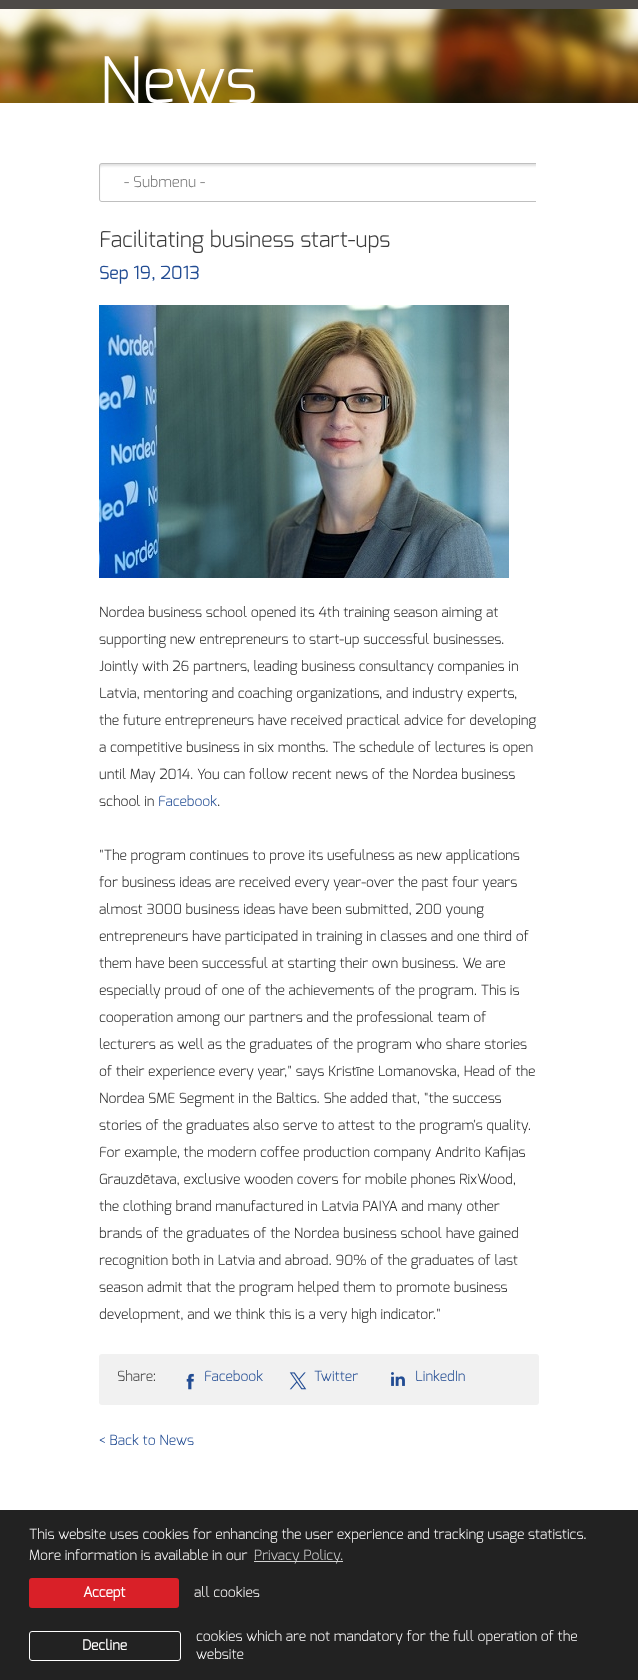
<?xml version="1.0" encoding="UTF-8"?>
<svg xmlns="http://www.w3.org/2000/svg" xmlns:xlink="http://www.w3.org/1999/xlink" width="638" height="1680">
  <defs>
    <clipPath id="clip1"><rect x="79" y="9" width="480" height="94" /></clipPath>
  </defs>
  <rect width="100%" height="100%" fill="#ffffff" />
  <rect width="638" height="9" fill="#4d4a47" />
  <image x="0" y="9" width="638" height="94" xlink:href="image1.png" />
  <image x="99" y="163" width="437" height="39" xlink:href="image2.png" />
  <image x="99" y="305" width="410" height="273" xlink:href="image3.png" />
  <rect x="99" y="1354" width="440" height="51" rx="3" fill="#f1f1f1" />
  <image x="186" y="1373" width="8" height="17" xlink:href="image4.png" />
  <image x="289" y="1372" width="18" height="18" xlink:href="image5.png" />
  <image x="391" y="1372" width="14" height="14" xlink:href="image6.png" />
  <rect y="1510" width="638" height="170" fill="#222222" />
  <rect x="254" y="1561" width="89" height="1" fill="#d3d3d3" />
  <rect x="29" y="1578" width="150" height="30" rx="3" fill="#d92028" />
  <rect x="29.5" y="1631.5" width="151" height="29" rx="2.5" fill="none" stroke="#ffffff" />
  <g clip-path="url(#clip1)">
    <text x="99" y="103" style="font-family: Exo; font-size: 64px; font-weight: 300; fill: #fffefe">News</text>
  </g>
  <text x="124" y="187" style="font-family: Exo; font-size: 15px; font-weight: 300; fill: #757575">- Submenu -</text>
  <text x="99" y="247" style="font-family: Exo; font-size: 22px; font-weight: 300; fill: #3b3b3b">Facilitating business start-ups</text>
  <text x="99" y="279" style="font-family: Exo; font-size: 18px; fill: #224c93">Sep 19, 2013</text>
  <text x="99" y="617" style="font-family: Exo; font-size: 14px; font-weight: 300; fill: #252525">Nordea business school opened its 4th training season aiming at</text>
  <text x="99" y="644" style="font-family: Exo; font-size: 14px; font-weight: 300; fill: #252525">supporting new entrepreneurs to start-up successful businesses.</text>
  <text x="99" y="671" style="font-family: Exo; font-size: 14px; font-weight: 300; fill: #252525">Jointly with 26 partners, leading business consultancy companies in</text>
  <text x="99" y="698" style="font-family: Exo; font-size: 14px; font-weight: 300; fill: #252525">Latvia, mentoring and coaching organizations, and industry experts,</text>
  <text x="99" y="725" style="font-family: Exo; font-size: 14px; font-weight: 300; fill: #252525">the future entrepreneurs have received practical advice for developing</text>
  <text x="99" y="752" style="font-family: Exo; font-size: 14px; font-weight: 300; fill: #252525">a competitive business in six months. The schedule of lectures is open</text>
  <text x="99" y="779" style="font-family: Exo; font-size: 14px; font-weight: 300; fill: #252525">until May 2014. You can follow recent news of the Nordea business</text>
  <text x="99" y="806" style="font-family: Exo; font-size: 14px; font-weight: 300; fill: #252525">school in</text>
  <text x="158" y="806" style="font-family: Exo; font-size: 14px; font-weight: 300; fill: #224c93">Facebook</text>
  <text x="217" y="806" style="font-family: Exo; font-size: 14px; font-weight: 300; fill: #252525">.</text>
  <text x="99" y="860" style="font-family: Exo; font-size: 14px; font-weight: 300; fill: #252525">"The program continues to prove its usefulness as new applications</text>
  <text x="99" y="887" style="font-family: Exo; font-size: 14px; font-weight: 300; fill: #252525">for business ideas are received every year-over the past four years</text>
  <text x="99" y="914" style="font-family: Exo; font-size: 14px; font-weight: 300; fill: #252525">almost 3000 business ideas have been submitted, 200 young</text>
  <text x="99" y="941" style="font-family: Exo; font-size: 14px; font-weight: 300; fill: #252525">entrepreneurs have participated in training in classes and one third of</text>
  <text x="99" y="968" style="font-family: Exo; font-size: 14px; font-weight: 300; fill: #252525">them have been successful at starting their own business. We are</text>
  <text x="99" y="995" style="font-family: Exo; font-size: 14px; font-weight: 300; fill: #252525">especially proud of one of the achievements of the program. This is</text>
  <text x="99" y="1022" style="font-family: Exo; font-size: 14px; font-weight: 300; fill: #252525">cooperation among our partners and the professional team of</text>
  <text x="99" y="1049" style="font-family: Exo; font-size: 14px; font-weight: 300; fill: #252525">lecturers as well as the graduates of the program who share stories</text>
  <text x="99" y="1076" style="font-family: Exo; font-size: 14px; font-weight: 300; fill: #252525">of their experience every year," says Kristīne Lomanovska, Head of the</text>
  <text x="99" y="1103" style="font-family: Exo; font-size: 14px; font-weight: 300; fill: #252525">Nordea SME Segment in the Baltics. She added that, "the success</text>
  <text x="99" y="1130" style="font-family: Exo; font-size: 14px; font-weight: 300; fill: #252525">stories of the graduates also serve to attest to the program's quality.</text>
  <text x="99" y="1157" style="font-family: Exo; font-size: 14px; font-weight: 300; fill: #252525">For example, the modern coffee production company Andrito Kafijas</text>
  <text x="99" y="1184" style="font-family: Exo; font-size: 14px; font-weight: 300; fill: #252525">Grauzdētava, exclusive wooden covers for mobile phones RixWood,</text>
  <text x="99" y="1211" style="font-family: Exo; font-size: 14px; font-weight: 300; fill: #252525">the clothing brand manufactured in Latvia PAIYA and many other</text>
  <text x="99" y="1238" style="font-family: Exo; font-size: 14px; font-weight: 300; fill: #252525">brands of the graduates of the Nordea business school have gained</text>
  <text x="99" y="1265" style="font-family: Exo; font-size: 14px; font-weight: 300; fill: #252525">recognition both in Latvia and abroad. 90% of the graduates of last</text>
  <text x="99" y="1292" style="font-family: Exo; font-size: 14px; font-weight: 300; fill: #252525">season admit that the program helped them to promote business</text>
  <text x="99" y="1319" style="font-family: Exo; font-size: 14px; font-weight: 300; fill: #252525">development, and we think this is a very high indicator."</text>
  <text x="117" y="1381" style="font-family: Exo; font-size: 14px; font-weight: 300; fill: #3b3b3b">Share:</text>
  <text x="204" y="1381" style="font-family: Exo; font-size: 14px; font-weight: 300; fill: #224c93">Facebook</text>
  <text x="314" y="1381" style="font-family: Exo; font-size: 14px; font-weight: 300; fill: #224c93">Twitter</text>
  <text x="415" y="1381" style="font-family: Exo; font-size: 14px; font-weight: 300; fill: #224c93">LinkedIn</text>
  <text x="99" y="1445" style="font-family: Exo; font-size: 14px; font-weight: 300; fill: #224c93">&lt; Back to News</text>
  <text x="29" y="1539" style="font-family: Exo; font-size: 14px; font-weight: 300; fill: #fffefe">This website uses cookies for enhancing the user experience and tracking usage statistics.</text>
  <text x="29" y="1560" style="font-family: Exo; font-size: 14px; font-weight: 300; fill: #fffefe">More information is available in our</text>
  <text x="254" y="1560" style="font-family: Exo; font-size: 14px; font-weight: 300; fill: #d3d3d3">Privacy Policy.</text>
  <text x="83" y="1597" style="font-family: Exo; font-size: 14px; font-weight: bold; fill: #fffefe">Accept</text>
  <text x="194" y="1597" style="font-family: Exo; font-size: 14px; font-weight: 300; fill: #fffefe">all cookies</text>
  <text x="82" y="1650" style="font-family: Exo; font-size: 14px; font-weight: bold; fill: #fffefe">Decline</text>
  <text x="196" y="1641" style="font-family: Exo; font-size: 14px; font-weight: 300; fill: #fffefe">cookies which are not mandatory for the full operation of the</text>
  <text x="196" y="1659" style="font-family: Exo; font-size: 14px; font-weight: 300; fill: #fffefe">website</text>
</svg>
